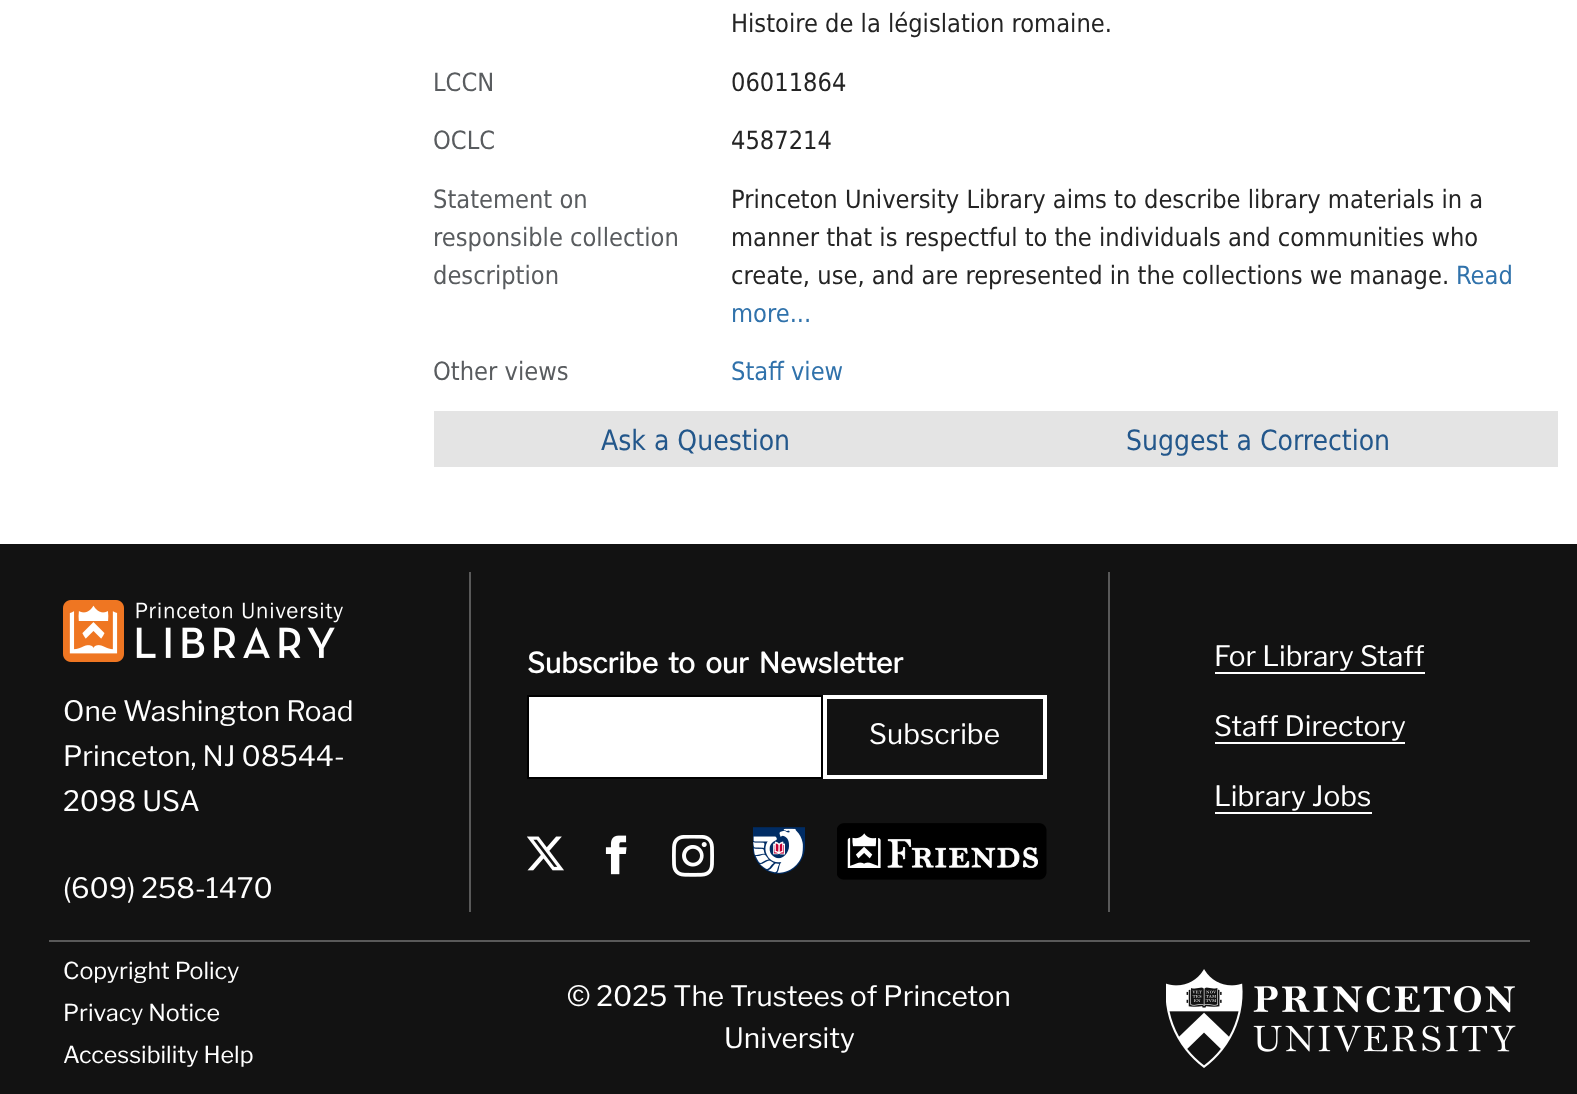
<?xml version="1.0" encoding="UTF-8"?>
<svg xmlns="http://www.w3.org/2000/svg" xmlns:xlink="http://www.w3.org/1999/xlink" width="1577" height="1094">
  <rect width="100%" height="100%" fill="#ffffff" />
  <rect x="434" y="411" width="1124" height="56" fill="#e4e4e4" />
  <rect y="544" width="1577" height="550" fill="#121212" />
  <rect x="469" y="572" width="2" height="340" fill="#595959" />
  <image x="63" y="600" width="280" height="62" xlink:href="image1.png" />
  <rect x="1108" y="572" width="2" height="340" fill="#595959" />
  <rect x="528" y="696" width="294" height="82" fill="#ffffff" stroke="#000000" stroke-width="2" />
  <rect x="825" y="697" width="220" height="80" fill="none" stroke="#ffffff" stroke-width="4" />
  <image x="527" y="836" width="37" height="35" xlink:href="image2.png" />
  <image x="605" y="835" width="22" height="40" xlink:href="image3.png" />
  <image x="672" y="835" width="42" height="42" xlink:href="image4.png" />
  <image x="753" y="827" width="52" height="47" xlink:href="image5.png" />
  <image x="837" y="823" width="210" height="57" xlink:href="image6.png" />
  <rect x="1215" y="672" width="210" height="2" fill="#ffffff" />
  <rect x="1215" y="742" width="190" height="2" fill="#ffffff" />
  <rect x="1215" y="812" width="157" height="2" fill="#ffffff" />
  <rect x="49" y="940" width="1481" height="2" fill="#595959" />
  <image x="1166" y="969" width="350" height="99" xlink:href="image7.png" />
  <text x="731" y="32" style="font-family: DejaVu Sans; font-size: 25.2px; fill: #242424">Histoire de la législation romaine.</text>
  <text x="433" y="91" style="font-family: DejaVu Sans; font-size: 25.2px; fill: #595c5f">LCCN</text>
  <text x="731" y="91" style="font-family: DejaVu Sans; font-size: 25.2px; fill: #242424">06011864</text>
  <text x="433" y="149" style="font-family: DejaVu Sans; font-size: 25.2px; fill: #595c5f">OCLC</text>
  <text x="731" y="149" style="font-family: DejaVu Sans; font-size: 25.2px; fill: #242424">4587214</text>
  <text x="433" y="208" style="font-family: DejaVu Sans; font-size: 25.2px; fill: #595c5f">Statement on</text>
  <text x="433" y="246" style="font-family: DejaVu Sans; font-size: 25.2px; fill: #595c5f">responsible collection</text>
  <text x="433" y="284" style="font-family: DejaVu Sans; font-size: 25.2px; fill: #595c5f">description</text>
  <text x="731" y="208" style="font-family: DejaVu Sans; font-size: 25.2px; fill: #242424">Princeton University Library aims to describe library materials in a</text>
  <text x="731" y="246" style="font-family: DejaVu Sans; font-size: 25.2px; fill: #242424">manner that is respectful to the individuals and communities who</text>
  <text x="731" y="284" style="font-family: DejaVu Sans; font-size: 25.2px; fill: #242424">create, use, and are represented in the collections we manage.</text>
  <text x="1456" y="284" style="font-family: DejaVu Sans; font-size: 25.2px; fill: #3072ab">Read</text>
  <text x="731" y="322" style="font-family: DejaVu Sans; font-size: 25.2px; fill: #3072ab">more...</text>
  <text x="433" y="380" style="font-family: DejaVu Sans; font-size: 25.2px; fill: #595c5f">Other views</text>
  <text x="731" y="380" style="font-family: DejaVu Sans; font-size: 25.2px; fill: #3072ab">Staff view</text>
  <text x="601" y="450" style="font-family: DejaVu Sans; font-size: 28px; fill: #23578b">Ask a Question</text>
  <text x="1126" y="450" style="font-family: DejaVu Sans; font-size: 28px; fill: #23578b">Suggest a Correction</text>
  <text x="63" y="721" style="font-family: Libre Franklin; font-size: 28px; fill: #ffffff">One Washington Road</text>
  <text x="63" y="766" style="font-family: Libre Franklin; font-size: 28px; fill: #ffffff">Princeton, NJ 08544-</text>
  <text x="63" y="811" style="font-family: Libre Franklin; font-size: 28px; fill: #ffffff">2098 USA</text>
  <text x="63" y="898" style="font-family: Libre Franklin; font-size: 28px; fill: #ffffff">(609) 258-1470</text>
  <text x="527" y="673" word-spacing="4" style="font-family: Libre Franklin; font-size: 28px; font-weight: bold; fill: #ffffff">Subscribe to our Newsletter</text>
  <text x="869" y="744" style="font-family: Libre Franklin; font-size: 28px; fill: #ffffff">Subscribe</text>
  <text x="1214" y="666" style="font-family: Libre Franklin; font-size: 28px; fill: #ffffff">For Library Staff</text>
  <text x="1214" y="736" style="font-family: Libre Franklin; font-size: 28px; fill: #ffffff">Staff Directory</text>
  <text x="1214" y="806" style="font-family: Libre Franklin; font-size: 28px; fill: #ffffff">Library Jobs</text>
  <text x="63" y="979" style="font-family: Libre Franklin; font-size: 23.25px; fill: #ffffff">Copyright Policy</text>
  <text x="63" y="1021" style="font-family: Libre Franklin; font-size: 23.25px; fill: #ffffff">Privacy Notice</text>
  <text x="63" y="1063" style="font-family: Libre Franklin; font-size: 23.25px; fill: #ffffff">Accessibility Help</text>
  <text x="567" y="1006" style="font-family: Libre Franklin; font-size: 28px; fill: #ffffff">© 2025 The Trustees of Princeton</text>
  <text x="724" y="1048" style="font-family: Libre Franklin; font-size: 28px; fill: #ffffff">University</text>
</svg>
